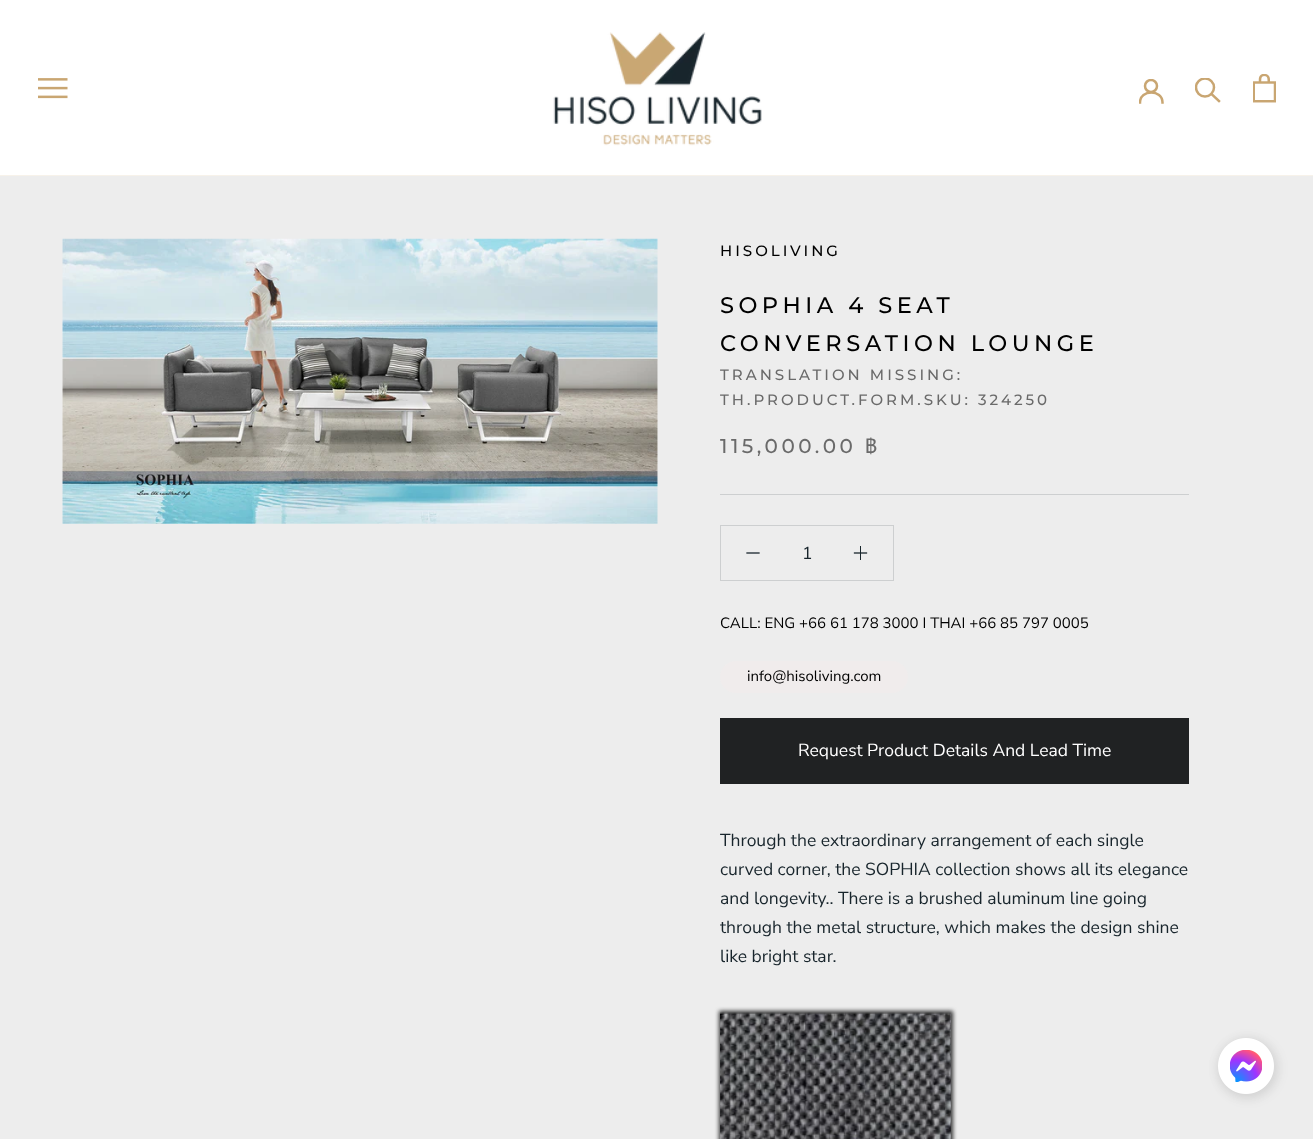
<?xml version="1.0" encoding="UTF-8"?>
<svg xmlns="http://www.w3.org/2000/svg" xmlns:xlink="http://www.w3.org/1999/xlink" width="1313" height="1139">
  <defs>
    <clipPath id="clip1"><rect x="1139" y="79" width="25" height="25" /></clipPath>
    <clipPath id="clip2"><rect x="1195" y="78" width="26" height="26" /></clipPath>
  </defs>
  <rect width="100%" height="100%" fill="#ededed" />
  <rect width="1313" height="175" fill="#ffffff" />
  <rect y="175" width="1313" height="1" fill="#f7f2ea" />
  <image x="38" y="78" width="30" height="21" xlink:href="image1.png" />
  <image x="553" y="32" width="209" height="114" xlink:href="image2.png" />
  <g clip-path="url(#clip1)">
    <path d="M 1140 102.5 c 0 -13.5 22.5 -13.5 22.5 0" fill="none" stroke="#c9a672" stroke-width="2.5" stroke-linecap="square" />
    <circle cx="1151" cy="86" r="6" fill="none" stroke="#c9a672" stroke-width="2.5" />
  </g>
  <path d="M 1219 101 l -7.5 -7" fill="none" stroke="#c9a672" stroke-width="2.5" stroke-linecap="square" />
  <g clip-path="url(#clip2)">
    <circle cx="1205" cy="87.5" r="9" fill="none" stroke="#c9a672" stroke-width="2.5" />
  </g>
  <image x="1253" y="74" width="23" height="29" xlink:href="image3.png" />
  <image x="62" y="238" width="596" height="286" xlink:href="image4.png" />
  <rect x="720" y="494" width="469" height="1" fill="#cdcfd0" />
  <rect x="720.5" y="525.5" width="173" height="55" fill="none" stroke="#cdcfd0" />
  <path d="M 747 553 h 12" fill="none" stroke="#18252c" stroke-width="1.3" stroke-linecap="square" />
  <rect x="860" y="546" width="1" height="14" fill="#18252c" />
  <path d="M 854.5 553 h 12" fill="none" stroke="#18252c" stroke-width="1.3" stroke-linecap="square" />
  <rect x="720" y="661" width="188" height="32" rx="16" fill="#f0ecec" />
  <rect x="720" y="718" width="469" height="66" fill="#202223" />
  <rect x="719" y="1011" width="234" height="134" fill="#333333" filter="blur(2px)" />
  <image x="720" y="1012" width="231" height="127" xlink:href="image5.png" />
  <rect x="1218" y="1038" width="61" height="61" rx="30.5" fill="#000000" fill-opacity="0.07" filter="blur(5.5px)" />
  <rect x="1218" y="1040" width="56" height="56" rx="28" fill="#000000" fill-opacity="0.05" filter="blur(6px)" />
  <image x="1218" y="1038" width="56" height="56" xlink:href="image6.png" />
  <text x="720" y="256" style="font-family: Montserrat; font-size: 15px; font-weight: 500; letter-spacing: 3px; fill: #000000">HISOLIVING</text>
  <text x="720" y="313" style="font-family: Montserrat; font-size: 22.5px; font-weight: 500; letter-spacing: 4.5px; fill: #000000">SOPHIA 4 SEAT</text>
  <text x="720" y="351" style="font-family: Montserrat; font-size: 22.5px; font-weight: 500; letter-spacing: 4.5px; fill: #000000">CONVERSATION LOUNGE</text>
  <text x="720" y="380" style="font-family: Montserrat; font-size: 15px; font-weight: 500; letter-spacing: 3px; fill: #6a6a6a">TRANSLATION MISSING:</text>
  <text x="720" y="405" style="font-family: Montserrat; font-size: 15px; font-weight: 500; letter-spacing: 3px; fill: #6a6a6a">TH.PRODUCT.FORM.SKU: 324250</text>
  <text x="720" y="453" style="font-family: Montserrat; font-size: 20px; font-weight: 500; letter-spacing: 3.5px; fill: #6a6a6a">115,000.00</text>
  <text x="865" y="453" style="font-family: Loma; font-size: 20px; letter-spacing: 3.5px; fill: #6a6a6a">฿</text>
  <text x="802" y="559" style="font-family: Nunito Sans; font-size: 17.5px; fill: #18252c">1</text>
  <text x="720" y="628" style="font-family: Nunito Sans; font-size: 15px; fill: #000000">CALL: ENG +66 61 178 3000 I THAI +66 85 797 0005</text>
  <text x="747" y="681" style="font-family: Nunito Sans; font-size: 15px; fill: #000000">info@hisoliving.com</text>
  <text x="798" y="756" style="font-family: Nunito Sans; font-size: 17.5px; fill: #ffffff">Request Product Details And Lead Time</text>
  <text x="720" y="846" style="font-family: Nunito Sans; font-size: 17.5px; fill: #18252c">Through the extraordinary arrangement of each single</text>
  <text x="720" y="875" style="font-family: Nunito Sans; font-size: 17.5px; fill: #18252c">curved corner, the SOPHIA collection shows all its elegance</text>
  <text x="720" y="904" style="font-family: Nunito Sans; font-size: 17.5px; fill: #18252c">and longevity.. There is a brushed aluminum line going</text>
  <text x="720" y="933" style="font-family: Nunito Sans; font-size: 17.5px; fill: #18252c">through the metal structure, which makes the design shine</text>
  <text x="720" y="962" style="font-family: Nunito Sans; font-size: 17.5px; fill: #18252c">like bright star.</text>
</svg>
